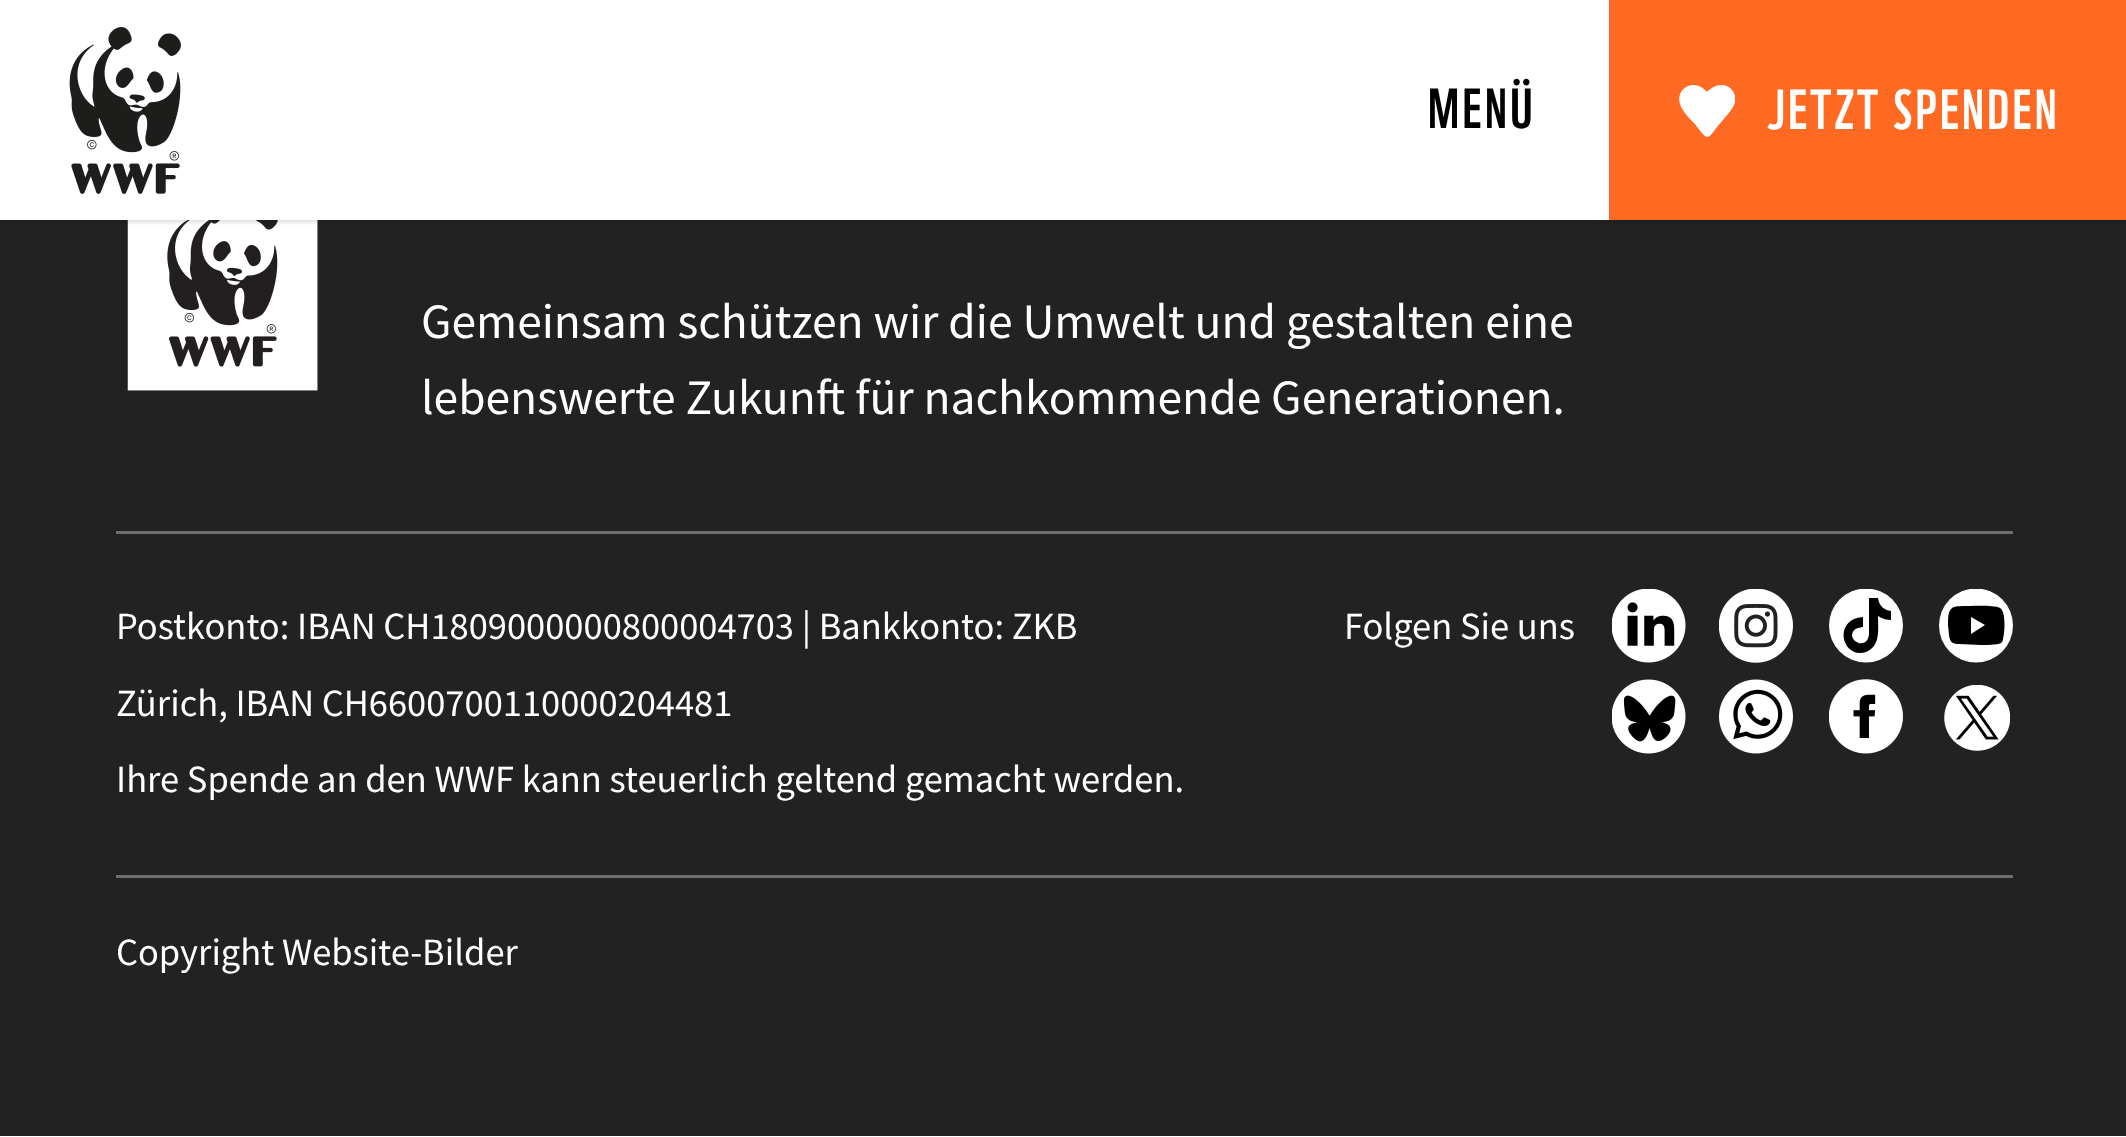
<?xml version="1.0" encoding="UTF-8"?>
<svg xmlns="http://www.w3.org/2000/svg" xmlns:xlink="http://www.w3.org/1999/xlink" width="2126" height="1137">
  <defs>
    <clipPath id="clip1"><rect x="1678" y="83" width="57" height="55" /></clipPath>
    <clipPath id="clip2"><rect x="1829" y="589" width="74" height="74" /></clipPath>
    <clipPath id="clip3"><rect x="1939" y="589" width="74" height="74" /></clipPath>
  </defs>
  <rect width="100%" height="100%" fill="#ffffff" />
  <rect y="220" width="2126" height="916" fill="#222222" />
  <image x="127" y="220" width="191" height="171" xlink:href="image2.png" />
  <rect y="3" width="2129" height="220" fill="#000000" fill-opacity="0.1" filter="blur(1.5px)" />
  <rect y="1" width="1609" height="219" fill="#ffffff" />
  <image x="69" y="27" width="112" height="167" xlink:href="image1.png" />
  <rect x="1609" width="517" height="220" fill="#fe6a22" />
  <g clip-path="url(#clip1)">
    <path d="M 1721 85 c -5 0 -10 3 -14 7 c -12 -15 -32 -4 -27 12 c 2 7 9 14 14 19 c 2 2 10 14 13 14 c 3 1 9 -9 10 -10 l 11 -13 c 6 -7 11 -15 4 -24 c -2 -3 -6 -5 -11 -5 z" fill="#ffffff" />
  </g>
  <rect x="116" y="531" width="1897" height="3" fill="#6e6e6e" />
  <image x="1612" y="589" width="74" height="74" xlink:href="image3.png" />
  <image x="1719" y="589" width="74" height="74" xlink:href="image4.png" />
  <g clip-path="url(#clip2)">
    <circle cx="1866" cy="625.5" r="37" fill="#ffffff" />
  </g>
  <path d="M 1878 598 c 1 8 6 12 13 13 v 9 c -4 0 -8 -1 -13 -4 c 0 13 3 30 -12 36 c -24 8 -34 -33 -3 -35 v 10 l -5 1 c -4 1 -6 4 -6 8 c 2 9 18 12 17 -5 v -33 z" fill="#000000" />
  <g clip-path="url(#clip3)">
    <circle cx="1976" cy="625.5" r="37" fill="#ffffff" />
  </g>
  <path d="M 1968 606 c -17 0 -20 0 -20 19 l 1 10 c 1 7 3 9 10 9 l 22 1 c 4 0 16 0 20 -2 c 1 -1 2 -2 2 -4 c 2 -6 3 -28 -3 -31 c -6 -3 -24 -2 -32 -2 z m 10 15 l 7 4 l -14 9 v -17 z" fill="#000000" />
  <image x="1612" y="679" width="74" height="75" xlink:href="image5.png" />
  <image x="1719" y="679" width="74" height="75" xlink:href="image6.png" />
  <image x="1829" y="679" width="74" height="75" xlink:href="image7.png" />
  <image x="1944" y="685" width="66" height="66" xlink:href="image8.png" />
  <rect x="116" y="875" width="1897" height="3" fill="#6e6e6e" />
  <text x="1428" y="128" style="font-family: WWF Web; font-size: 55px; letter-spacing: 3.5px; fill: #000000">MENÜ</text>
  <text x="1767" y="129" style="font-family: WWF Web; font-size: 55px; letter-spacing: 3.25px; fill: #ffffff">JETZT SPENDEN</text>
  <text x="421" y="338" style="font-family: Source Sans Pro; font-size: 49.5px; fill: #ffffff">Gemeinsam schützen wir die Umwelt und gestalten eine</text>
  <text x="421" y="414" style="font-family: Source Sans Pro; font-size: 49.5px; fill: #ffffff">lebenswerte Zukunft für nachkommende Generationen.</text>
  <text x="116" y="639" style="font-family: Source Sans Pro; font-size: 38.5px; fill: #ffffff">Postkonto: IBAN CH1809000000800004703 | Bankkonto: ZKB</text>
  <text x="116" y="716" style="font-family: Source Sans Pro; font-size: 38.5px; fill: #ffffff">Zürich, IBAN CH6600700110000204481</text>
  <text x="116" y="792" style="font-family: Source Sans Pro; font-size: 38.5px; fill: #ffffff">Ihre Spende an den WWF kann steuerlich geltend gemacht werden.</text>
  <text x="1344" y="639" style="font-family: Source Sans Pro; font-size: 38.5px; fill: #ffffff">Folgen Sie uns</text>
  <text x="116" y="965" style="font-family: Source Sans Pro; font-size: 38.5px; fill: #ffffff">Copyright Website-Bilder</text>
</svg>
